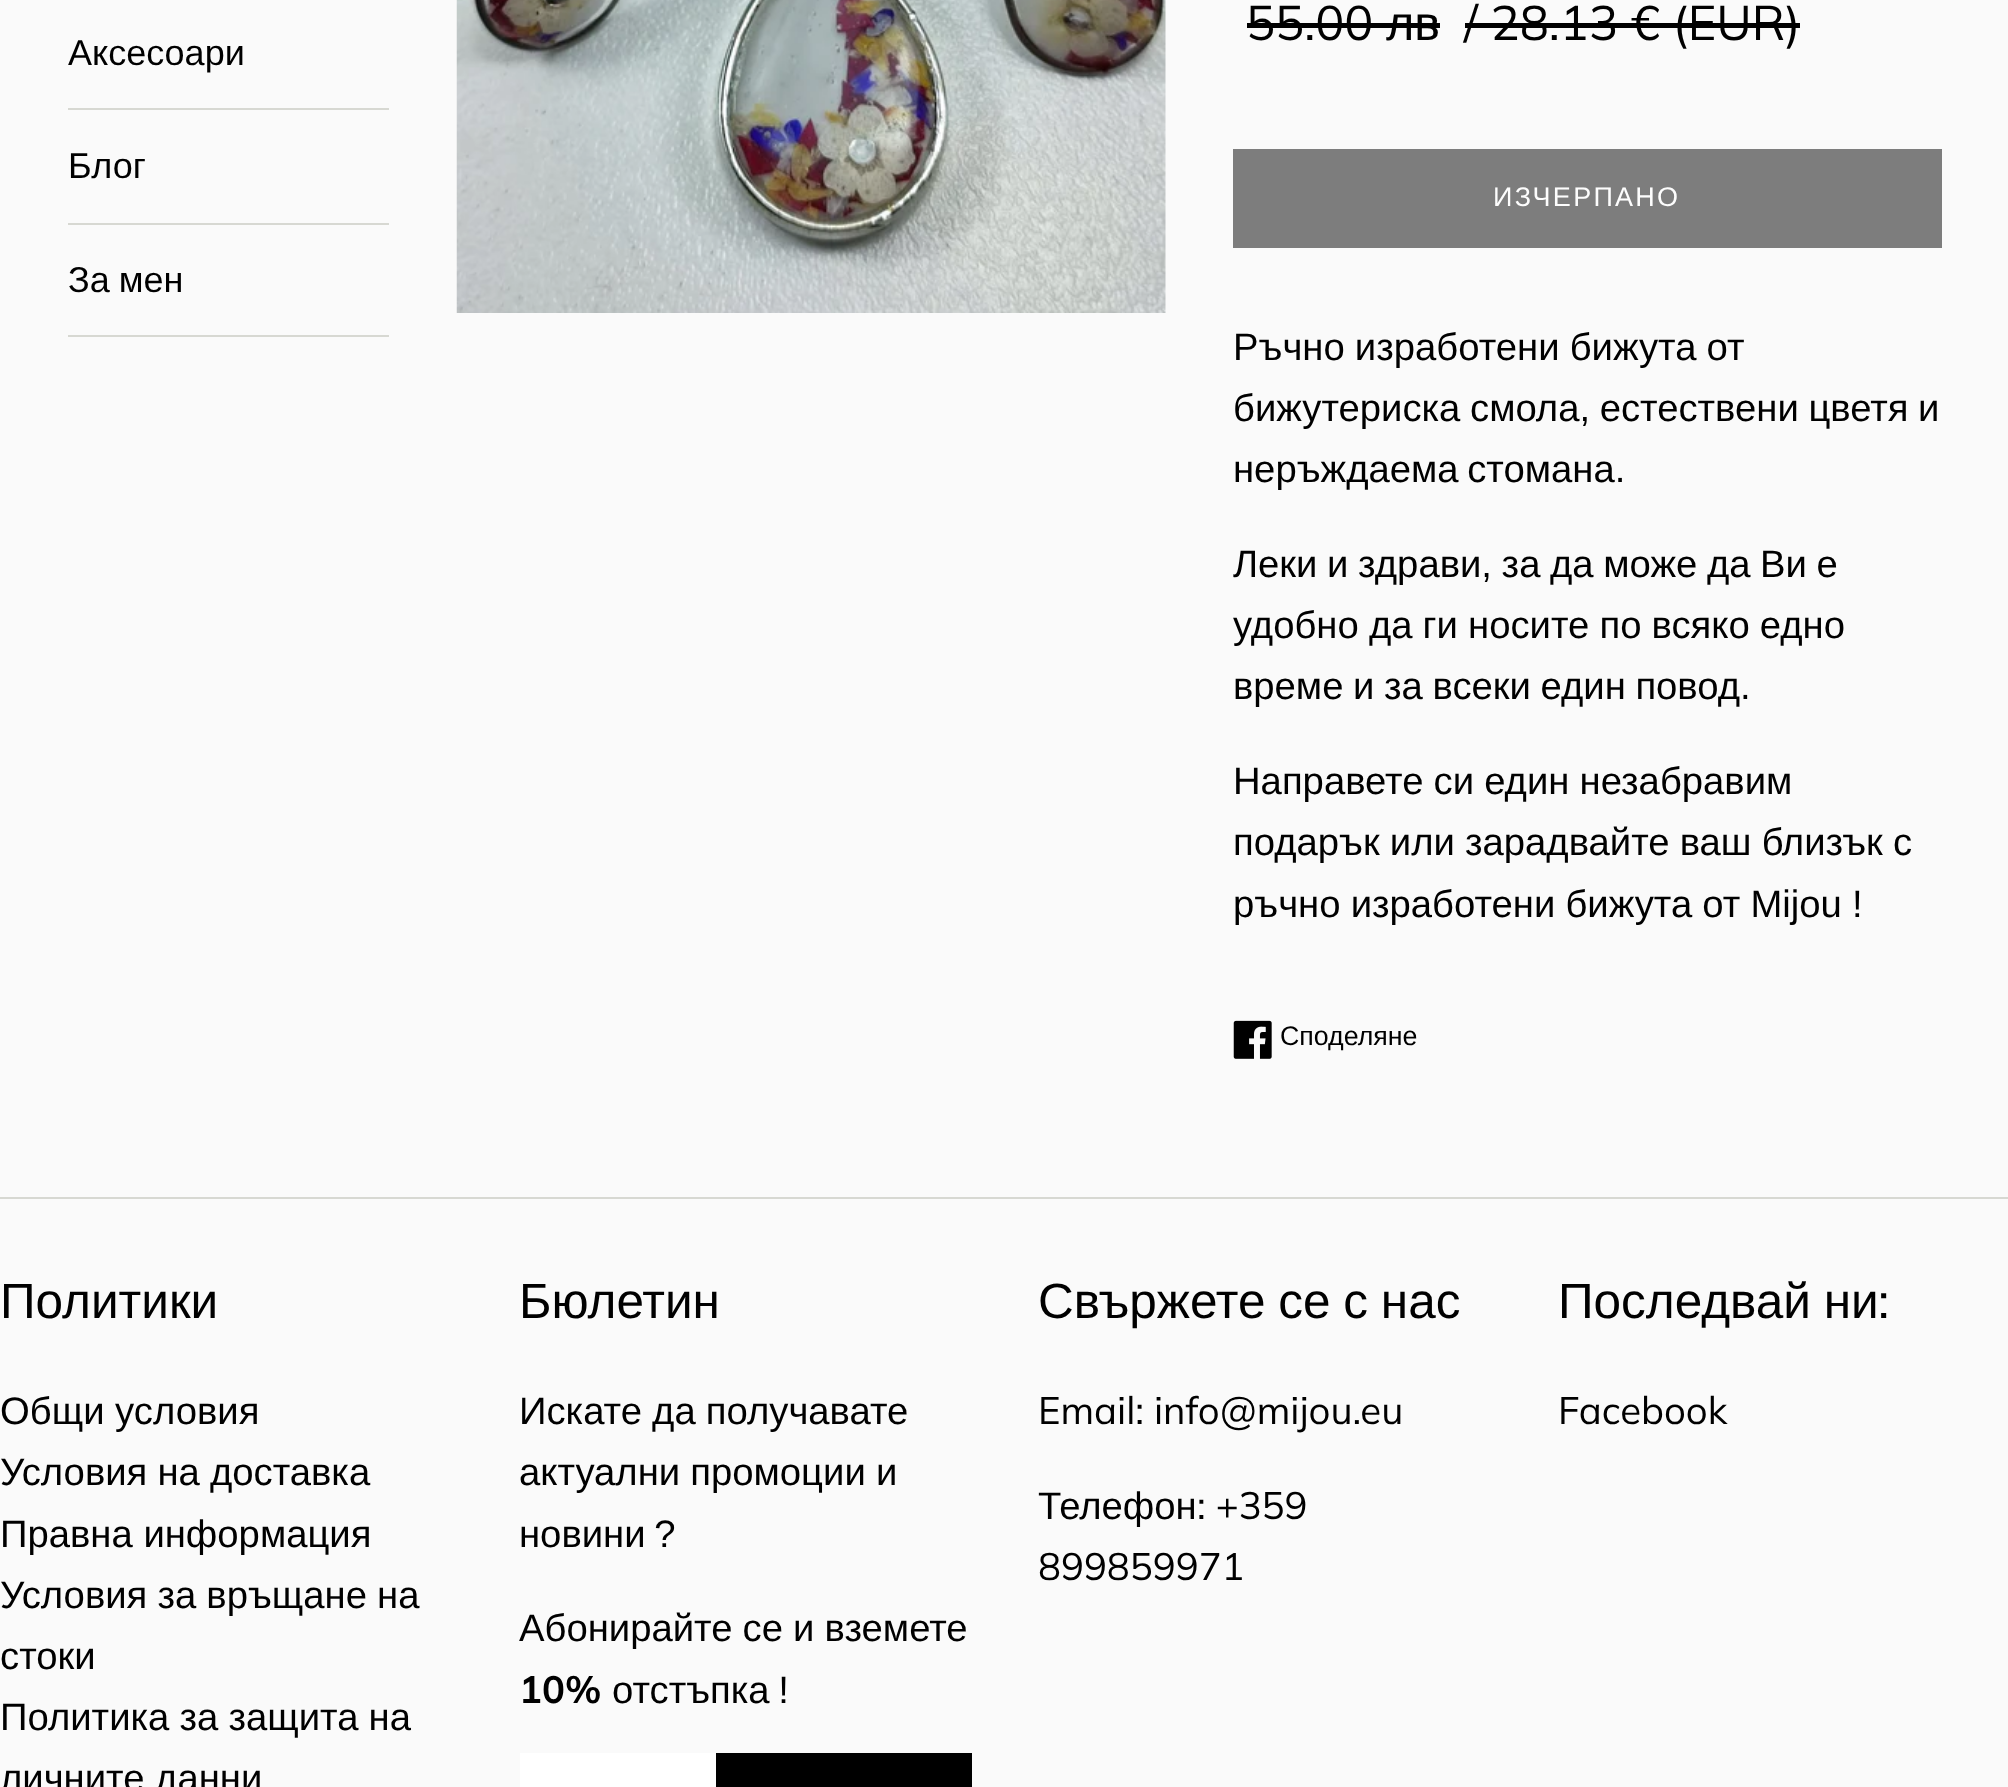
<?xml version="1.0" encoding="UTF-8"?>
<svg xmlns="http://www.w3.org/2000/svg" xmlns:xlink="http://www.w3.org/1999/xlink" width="2008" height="1787">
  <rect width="100%" height="100%" fill="#fafafa" />
  <rect x="68" y="108" width="321" height="2" fill="#d7d8d2" />
  <rect x="68" y="223" width="321" height="2" fill="#d7d8d2" />
  <rect x="68" y="335" width="321" height="2" fill="#d7d8d2" />
  <image x="456" y="0" width="710" height="313" xlink:href="image1.png" />
  <rect x="1247" y="23" width="193" height="5" fill="#000000" />
  <rect x="1465" y="23" width="335" height="5" fill="#000000" />
  <rect x="1233" y="149" width="709" height="99" fill="#7d7d7d" />
  <image x="1233" y="1020" width="39" height="39" xlink:href="image2.png" />
  <rect y="1197" width="2008" height="2" fill="#d7d8d2" />
  <rect x="520" y="1753" width="196" height="34" fill="#ffffff" />
  <rect x="716" y="1753" width="256" height="34" fill="#000000" />
  <text x="68" y="65" style="font-family: Liberation Sans; font-size: 36px; fill: #000000">Аксесоари</text>
  <text x="68" y="178" style="font-family: Liberation Sans; font-size: 36px; fill: #000000">Блог</text>
  <text x="68" y="292" word-spacing="-1" style="font-family: Liberation Sans; font-size: 36px; fill: #000000">За мен</text>
  <text x="1246" y="40" style="font-family: Muli; font-size: 48.5px; fill: #000000">55.00</text>
  <text x="1386" y="40" style="font-family: Liberation Sans; font-size: 48.5px; fill: #000000">лв</text>
  <text x="1464" y="40" style="font-family: Muli; font-size: 48.5px; fill: #000000">/ 28.13 € (EUR)</text>
  <text x="1493" y="206" style="font-family: Liberation Sans; font-size: 27px; letter-spacing: 2.25px; fill: #fdfdfd">ИЗЧЕРПАНО</text>
  <text x="1233" y="360" word-spacing="-0.5" style="font-family: Liberation Sans; font-size: 38.25px; fill: #000000">Ръчно изработени бижута от</text>
  <text x="1233" y="421" word-spacing="-1" style="font-family: Liberation Sans; font-size: 38.25px; fill: #000000">бижутериска смола, естествени цветя и</text>
  <text x="1233" y="482" word-spacing="-2" style="font-family: Liberation Sans; font-size: 38.25px; fill: #000000">неръждаема стомана.</text>
  <text x="1233" y="577" word-spacing="-1" style="font-family: Liberation Sans; font-size: 38.25px; fill: #000000">Леки и здрави, за да може да Ви е</text>
  <text x="1233" y="638" word-spacing="-0.5" style="font-family: Liberation Sans; font-size: 38.25px; fill: #000000">удобно да ги носите по всяко едно</text>
  <text x="1233" y="699" word-spacing="-1" style="font-family: Liberation Sans; font-size: 38.25px; fill: #000000">време и за всеки един повод.</text>
  <text x="1233" y="794" word-spacing="-0.5" style="font-family: Liberation Sans; font-size: 38.25px; fill: #000000">Направете си един незабравим</text>
  <text x="1233" y="855" word-spacing="-0.5" style="font-family: Liberation Sans; font-size: 38.25px; fill: #000000">подарък или зарадвайте ваш близък с</text>
  <text x="1233" y="917" word-spacing="-0.5" style="font-family: Liberation Sans; font-size: 38.25px; fill: #000000">ръчно изработени бижута от Mijou !</text>
  <text x="1280" y="1045" style="font-family: Liberation Sans; font-size: 26.75px; fill: #000000">Споделяне</text>
  <text x="0" y="1318" style="font-family: Liberation Sans; font-size: 49.5px; fill: #000000">Политики</text>
  <text x="0" y="1424" style="font-family: Liberation Sans; font-size: 38.25px; fill: #000000">Общи условия</text>
  <text x="0" y="1485" word-spacing="-0.5" style="font-family: Liberation Sans; font-size: 38.25px; fill: #000000">Условия на доставка</text>
  <text x="0" y="1547" style="font-family: Liberation Sans; font-size: 38.25px; fill: #000000">Правна информация</text>
  <text x="0" y="1608" word-spacing="-0.5" style="font-family: Liberation Sans; font-size: 38.25px; fill: #000000">Условия за връщане на</text>
  <text x="0" y="1669" style="font-family: Liberation Sans; font-size: 38.25px; fill: #000000">стоки</text>
  <text x="0" y="1730" word-spacing="-0.5" style="font-family: Liberation Sans; font-size: 38.25px; fill: #000000">Политика за защита на</text>
  <text x="0" y="1791" style="font-family: Liberation Sans; font-size: 38.25px; fill: #000000">личните данни</text>
  <text x="519" y="1318" style="font-family: Liberation Sans; font-size: 49.5px; fill: #000000">Бюлетин</text>
  <text x="519" y="1424" word-spacing="-0.5" style="font-family: Liberation Sans; font-size: 38.25px; fill: #000000">Искате да получавате</text>
  <text x="519" y="1485" word-spacing="-0.5" style="font-family: Liberation Sans; font-size: 38.25px; fill: #000000">актуални промоции и</text>
  <text x="519" y="1547" word-spacing="-2" style="font-family: Liberation Sans; font-size: 38.25px; fill: #000000">новини ?</text>
  <text x="519" y="1641" word-spacing="-0.5" style="font-family: Liberation Sans; font-size: 38.25px; fill: #000000">Абонирайте се и вземете</text>
  <text x="519" y="1703" style="font-family: Muli; font-size: 38.25px; font-weight: bold; fill: #000000">10%</text>
  <text x="612" y="1703" word-spacing="-2" style="font-family: Liberation Sans; font-size: 38.25px; fill: #000000">отстъпка !</text>
  <text x="1038" y="1318" word-spacing="-1" style="font-family: Liberation Sans; font-size: 49.5px; fill: #000000">Свържете се с нас</text>
  <text x="1038" y="1424" style="font-family: Muli; font-size: 38.25px; fill: #000000">Email: info@mijou.eu</text>
  <text x="1038" y="1519" style="font-family: Liberation Sans; font-size: 38.25px; fill: #000000">Телефон</text>
  <text x="1197" y="1519" style="font-family: Muli; font-size: 38.25px; fill: #000000">: +359</text>
  <text x="1038" y="1580" style="font-family: Muli; font-size: 38.25px; fill: #000000">899859971</text>
  <text x="1558" y="1318" word-spacing="-1" style="font-family: Liberation Sans; font-size: 49.5px; fill: #000000">Последвай ни</text>
  <text x="1878" y="1318" style="font-family: Muli; font-size: 49.5px; fill: #000000">:</text>
  <text x="1558" y="1424" style="font-family: Muli; font-size: 38.25px; fill: #000000">Facebook</text>
</svg>
